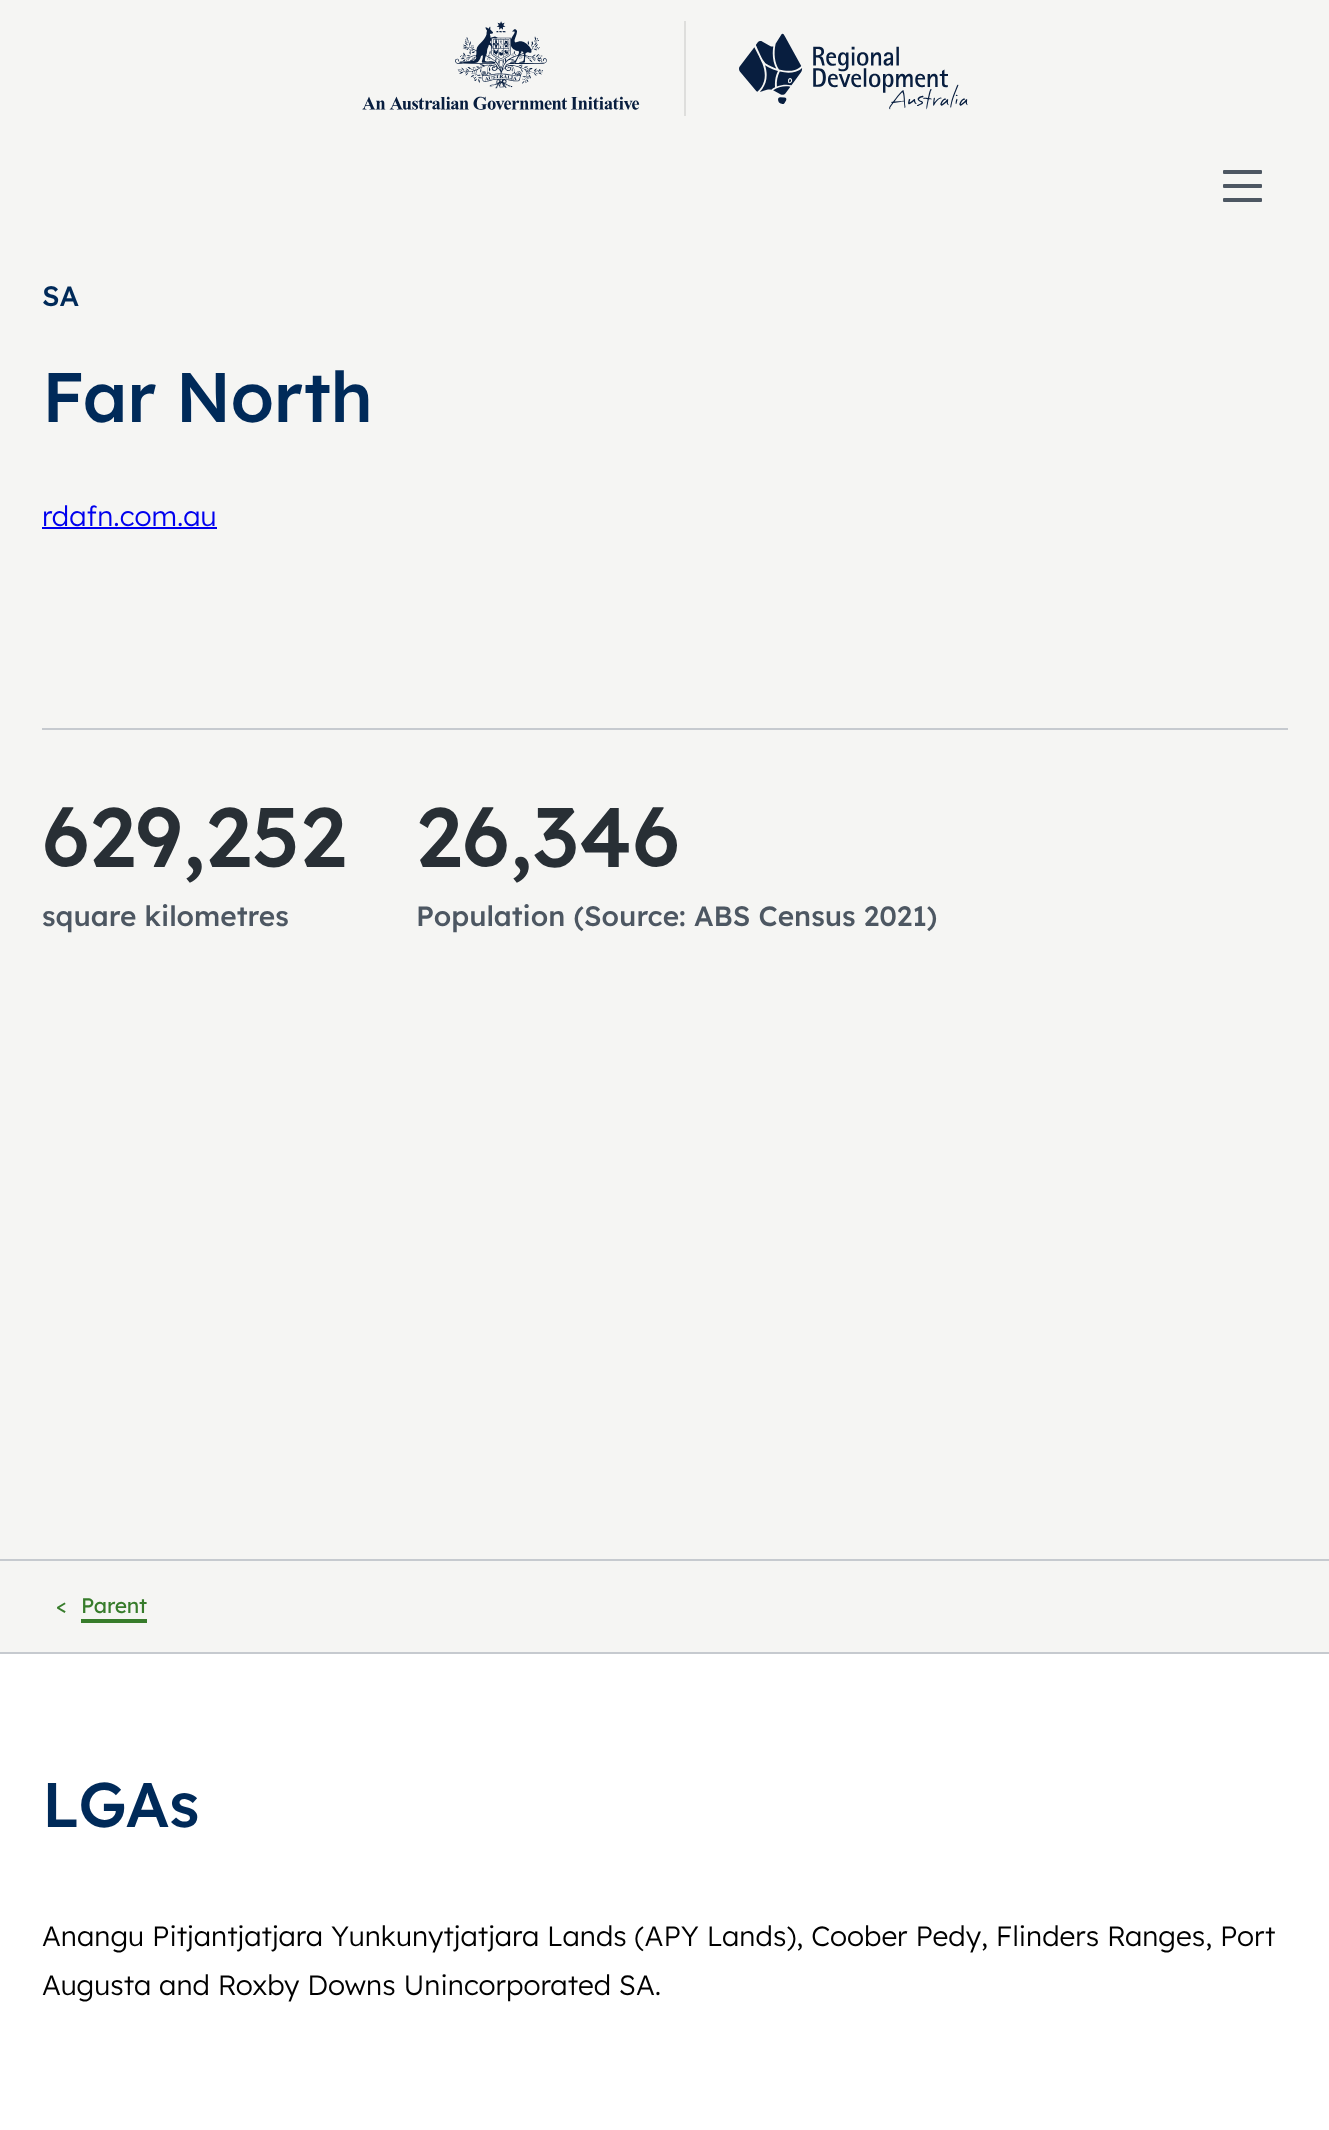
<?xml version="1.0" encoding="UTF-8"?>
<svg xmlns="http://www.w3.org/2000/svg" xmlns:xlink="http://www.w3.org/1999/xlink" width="1329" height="2130">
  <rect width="100%" height="100%" fill="#ffffff" />
  <rect width="1329" height="1559" fill="#f5f5f3" />
  <rect x="684" y="21" width="2" height="95" fill="#dededc" />
  <image x="362" y="21" width="278" height="89" xlink:href="image1.png" />
  <image x="739" y="33" width="229" height="77" xlink:href="image2.png" />
  <rect x="1223" y="170" width="39" height="4" rx="1" fill="#4d5762" />
  <rect x="1223" y="184" width="39" height="4" rx="1" fill="#4d5762" />
  <rect x="1223" y="198" width="39" height="4" rx="1" fill="#4d5762" />
  <rect x="42" y="527" width="175" height="2" fill="#0000ee" />
  <rect x="42" y="728" width="1246" height="2" fill="#c6cacf" />
  <rect y="1561" width="1329" height="91" fill="#f5f5f3" />
  <rect y="1559" width="1329" height="2" fill="#c6cacf" />
  <rect y="1652" width="1329" height="2" fill="#c6cacf" />
  <rect x="81" y="1619" width="66" height="4" fill="#377c2b" />
  <text x="42" y="306" style="font-family: Lexend; font-size: 28px; font-weight: 500; fill: #002a59">SA</text>
  <text x="42" y="422" style="font-family: Lexend; font-size: 70px; font-weight: 500; letter-spacing: -0.75px; fill: #002a59">Far North</text>
  <text x="42" y="526" style="font-family: Lexend; font-size: 28px; font-weight: 300; fill: #0000ee">rdafn.com.au</text>
  <text x="42" y="867" style="font-family: Lexend; font-size: 84px; font-weight: 500; fill: #282f35">629,252</text>
  <text x="42" y="926" style="font-family: Lexend; font-size: 28px; font-weight: 500; fill: #4d5762">square kilometres</text>
  <text x="416" y="867" style="font-family: Lexend; font-size: 84px; font-weight: 500; fill: #282f35">26,346</text>
  <text x="416" y="926" style="font-family: Lexend; font-size: 28px; font-weight: 500; fill: #4d5762">Population (Source: ABS Census 2021)</text>
  <text x="56" y="1613" style="font-family: Lexend; font-size: 21px; letter-spacing: -0.25px; fill: #377c2b">&lt;</text>
  <text x="81" y="1613" style="font-family: Lexend; font-size: 21px; letter-spacing: -0.25px; fill: #377c2b">Parent</text>
  <text x="42" y="1827" style="font-family: Lexend; font-size: 63px; font-weight: 500; letter-spacing: -0.5px; fill: #002a59">LGAs</text>
  <text x="42" y="1946" style="font-family: Lexend; font-size: 28px; font-weight: 300; fill: #000000">Anangu Pitjantjatjara Yunkunytjatjara Lands (APY Lands), Coober Pedy, Flinders Ranges, Port</text>
  <text x="42" y="1995" style="font-family: Lexend; font-size: 28px; font-weight: 300; fill: #000000">Augusta and Roxby Downs Unincorporated SA.</text>
</svg>
